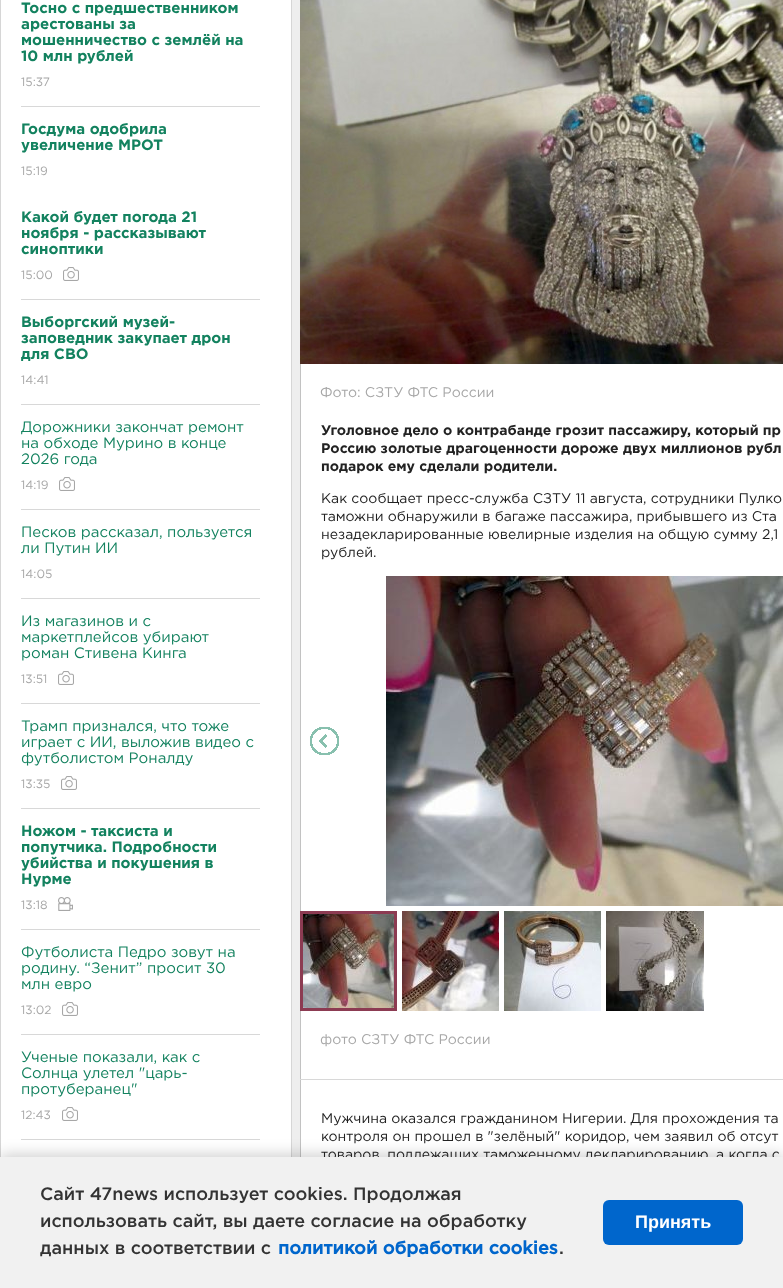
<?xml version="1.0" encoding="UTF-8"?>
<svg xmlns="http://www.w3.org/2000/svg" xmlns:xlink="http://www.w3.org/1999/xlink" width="783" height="1288">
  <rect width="100%" height="100%" fill="#eeeeee" />
  <rect x="1" width="290" height="1157" fill="#ffffff" />
  <rect x="291" width="1" height="1157" fill="#d6d6d6" />
  <rect width="1" height="1157" fill="#d6d6d6" />
  <rect x="21" y="106" width="239" height="1" fill="#d8d8d8" />
  <rect x="21" y="299" width="239" height="1" fill="#d8d8d8" />
  <image x="63" y="267" width="16" height="14" xlink:href="image1.png" />
  <rect x="21" y="404" width="239" height="1" fill="#d8d8d8" />
  <rect x="21" y="509" width="239" height="1" fill="#d8d8d8" />
  <image x="59" y="477" width="16" height="14" xlink:href="image1.png" />
  <rect x="21" y="598" width="239" height="1" fill="#d8d8d8" />
  <rect x="21" y="703" width="239" height="1" fill="#d8d8d8" />
  <image x="58" y="671" width="16" height="14" xlink:href="image1.png" />
  <rect x="21" y="808" width="239" height="1" fill="#d8d8d8" />
  <image x="61" y="776" width="16" height="14" xlink:href="image1.png" />
  <rect x="21" y="929" width="239" height="1" fill="#d8d8d8" />
  <image x="58" y="897" width="15" height="14" xlink:href="image2.png" />
  <rect x="21" y="1034" width="239" height="1" fill="#d8d8d8" />
  <image x="62" y="1002" width="16" height="14" xlink:href="image1.png" />
  <rect x="21" y="1139" width="239" height="1" fill="#d8d8d8" />
  <image x="62" y="1107" width="16" height="14" xlink:href="image1.png" />
  <rect x="301" y="364" width="482" height="793" fill="#ffffff" />
  <rect x="300.5" y="-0.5" width="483" height="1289" fill="none" stroke="#c2c2c2" />
  <image x="300" y="0" width="483" height="364" xlink:href="image3.png" />
  <rect x="300" y="1079" width="483" height="1" fill="#d8d8d8" />
  <image x="310" y="727" width="29" height="28" xlink:href="image4.png" />
  <image x="386" y="576" width="397" height="330" xlink:href="image5.png" />
  <image x="303" y="914" width="91" height="94" xlink:href="image6.png" />
  <rect x="301.5" y="912.5" width="94" height="97" fill="none" stroke="#8c3b52" stroke-width="3" />
  <image x="402" y="911" width="97" height="100" xlink:href="image7.png" />
  <image x="504" y="911" width="97" height="100" xlink:href="image8.png" />
  <image x="606" y="911" width="98" height="100" xlink:href="image9.png" />
  <rect y="1155" width="783" height="131" fill="#000000" fill-opacity="0.2" filter="blur(7.5px)" />
  <text x="21" y="13" style="font-family: Gotham; font-size: 15px; font-weight: bold; fill: #13825f">Тосно с предшественником</text>
  <text x="21" y="29" style="font-family: Gotham; font-size: 15px; font-weight: bold; fill: #13825f">арестованы за</text>
  <text x="21" y="45" style="font-family: Gotham; font-size: 15px; font-weight: bold; fill: #13825f">мошенничество с землёй на</text>
  <text x="21" y="61" style="font-family: Gotham; font-size: 15px; font-weight: bold; fill: #13825f">10 млн рублей</text>
  <text x="21" y="86" style="font-family: Gotham; font-size: 12px; fill: #a7a7a7">15:37</text>
  <text x="21" y="134" style="font-family: Gotham; font-size: 15px; font-weight: bold; fill: #13825f">Госдума одобрила</text>
  <text x="21" y="150" style="font-family: Gotham; font-size: 15px; font-weight: bold; fill: #13825f">увеличение МРОТ</text>
  <text x="21" y="175" style="font-family: Gotham; font-size: 12px; fill: #a7a7a7">15:19</text>
  <text x="21" y="222" style="font-family: Gotham; font-size: 15px; font-weight: bold; fill: #13825f">Какой будет погода 21</text>
  <text x="21" y="238" style="font-family: Gotham; font-size: 15px; font-weight: bold; fill: #13825f">ноября - рассказывают</text>
  <text x="21" y="254" style="font-family: Gotham; font-size: 15px; font-weight: bold; fill: #13825f">синоптики</text>
  <text x="21" y="279" style="font-family: Gotham; font-size: 12px; fill: #a7a7a7">15:00</text>
  <text x="21" y="327" style="font-family: Gotham; font-size: 15px; font-weight: bold; fill: #13825f">Выборгский музей-</text>
  <text x="21" y="343" style="font-family: Gotham; font-size: 15px; font-weight: bold; fill: #13825f">заповедник закупает дрон</text>
  <text x="21" y="359" style="font-family: Gotham; font-size: 15px; font-weight: bold; fill: #13825f">для СВО</text>
  <text x="21" y="384" style="font-family: Gotham; font-size: 12px; fill: #a7a7a7">14:41</text>
  <text x="21" y="432" style="font-family: Gotham; font-size: 15px; fill: #13825f">Дорожники закончат ремонт</text>
  <text x="21" y="448" style="font-family: Gotham; font-size: 15px; fill: #13825f">на обходе Мурино в конце</text>
  <text x="21" y="464" style="font-family: Gotham; font-size: 15px; fill: #13825f">2026 года</text>
  <text x="21" y="489" style="font-family: Gotham; font-size: 12px; fill: #a7a7a7">14:19</text>
  <text x="21" y="537" style="font-family: Gotham; font-size: 15px; fill: #13825f">Песков рассказал, пользуется</text>
  <text x="21" y="553" style="font-family: Gotham; font-size: 15px; fill: #13825f">ли Путин ИИ</text>
  <text x="21" y="578" style="font-family: Gotham; font-size: 12px; fill: #a7a7a7">14:05</text>
  <text x="21" y="626" style="font-family: Gotham; font-size: 15px; fill: #13825f">Из магазинов и с</text>
  <text x="21" y="642" style="font-family: Gotham; font-size: 15px; fill: #13825f">маркетплейсов убирают</text>
  <text x="21" y="658" style="font-family: Gotham; font-size: 15px; fill: #13825f">роман Стивена Кинга</text>
  <text x="21" y="683" style="font-family: Gotham; font-size: 12px; fill: #a7a7a7">13:51</text>
  <text x="21" y="731" style="font-family: Gotham; font-size: 15px; fill: #13825f">Трамп признался, что тоже</text>
  <text x="21" y="747" style="font-family: Gotham; font-size: 15px; fill: #13825f">играет с ИИ, выложив видео с</text>
  <text x="21" y="763" style="font-family: Gotham; font-size: 15px; fill: #13825f">футболистом Роналду</text>
  <text x="21" y="788" style="font-family: Gotham; font-size: 12px; fill: #a7a7a7">13:35</text>
  <text x="21" y="836" style="font-family: Gotham; font-size: 15px; font-weight: bold; fill: #13825f">Ножом - таксиста и</text>
  <text x="21" y="852" style="font-family: Gotham; font-size: 15px; font-weight: bold; fill: #13825f">попутчика. Подробности</text>
  <text x="21" y="868" style="font-family: Gotham; font-size: 15px; font-weight: bold; fill: #13825f">убийства и покушения в</text>
  <text x="21" y="884" style="font-family: Gotham; font-size: 15px; font-weight: bold; fill: #13825f">Нурме</text>
  <text x="21" y="909" style="font-family: Gotham; font-size: 12px; fill: #a7a7a7">13:18</text>
  <text x="21" y="957" style="font-family: Gotham; font-size: 15px; fill: #13825f">Футболиста Педро зовут на</text>
  <text x="21" y="973" style="font-family: Gotham; font-size: 15px; fill: #13825f">родину. “Зенит” просит 30</text>
  <text x="21" y="989" style="font-family: Gotham; font-size: 15px; fill: #13825f">млн евро</text>
  <text x="21" y="1014" style="font-family: Gotham; font-size: 12px; fill: #a7a7a7">13:02</text>
  <text x="21" y="1062" style="font-family: Gotham; font-size: 15px; fill: #13825f">Ученые показали, как с</text>
  <text x="21" y="1078" style="font-family: Gotham; font-size: 15px; fill: #13825f">Солнца улетел "царь-</text>
  <text x="21" y="1094" style="font-family: Gotham; font-size: 15px; fill: #13825f">протуберанец"</text>
  <text x="21" y="1119" style="font-family: Gotham; font-size: 12px; fill: #a7a7a7">12:43</text>
  <text x="320" y="397" style="font-family: Gotham; font-size: 14px; fill: #a7a7a7">Фото: СЗТУ ФТС России</text>
  <text x="321" y="435" style="font-family: Gotham; font-size: 14px; font-weight: bold; fill: #222222">Уголовное дело о контрабанде грозит пассажиру, который пр</text>
  <text x="321" y="453" style="font-family: Gotham; font-size: 14px; font-weight: bold; fill: #222222">Россию золотые драгоценности дороже двух миллионов рубл</text>
  <text x="321" y="471" style="font-family: Gotham; font-size: 14px; font-weight: bold; fill: #222222">подарок ему сделали родители.</text>
  <text x="321" y="503" style="font-family: Gotham; font-size: 14px; fill: #222222">Как сообщает пресс-служба СЗТУ 11 августа, сотрудники Пулко</text>
  <text x="321" y="521" style="font-family: Gotham; font-size: 14px; fill: #222222">таможни обнаружили в багаже пассажира, прибывшего из Ста</text>
  <text x="321" y="539" style="font-family: Gotham; font-size: 14px; fill: #222222">незадекларированные ювелирные изделия на общую сумму 2,1</text>
  <text x="321" y="557" style="font-family: Gotham; font-size: 14px; fill: #222222">рублей.</text>
  <text x="320" y="1044" style="font-family: Gotham; font-size: 14px; fill: #a7a7a7">фото СЗТУ ФТС России</text>
  <text x="321" y="1123" style="font-family: Gotham; font-size: 14px; fill: #222222">Мужчина оказался гражданином Нигерии. Для прохождения та</text>
  <text x="321" y="1141" style="font-family: Gotham; font-size: 14px; fill: #222222">контроля он прошел в "зелёный" коридор, чем заявил об отсут</text>
  <text x="321" y="1159" style="font-family: Gotham; font-size: 14px; fill: #222222">товаров, подлежащих таможенному декларированию, а когда с</text>
  <rect y="1157" width="783" height="131" fill="#f1f1f1" />
  <text x="40" y="1200" style="font-family: Gotham; font-size: 18px; font-weight: 500; fill: #333333">Сайт 47news использует cookies. Продолжая</text>
  <text x="40" y="1227" style="font-family: Gotham; font-size: 18px; font-weight: 500; fill: #333333">использовать сайт, вы даете согласие на обработку</text>
  <text x="40" y="1254" style="font-family: Gotham; font-size: 18px; font-weight: 500; fill: #333333">данных в соответствии с</text>
  <text x="278" y="1254" style="font-family: 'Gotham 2'; font-size: 18px; font-weight: bold; fill: #0066cc">политикой обработки cookies</text>
  <text x="559" y="1254" style="font-family: Gotham; font-size: 18px; font-weight: 500; fill: #333333">.</text>
  <rect x="603" y="1200" width="140" height="45" rx="6" fill="#0066cc" />
  <text x="635" y="1228" style="font-family: Liberation Sans; font-size: 18px; font-weight: bold; fill: #ffffff">Принять</text>
</svg>
